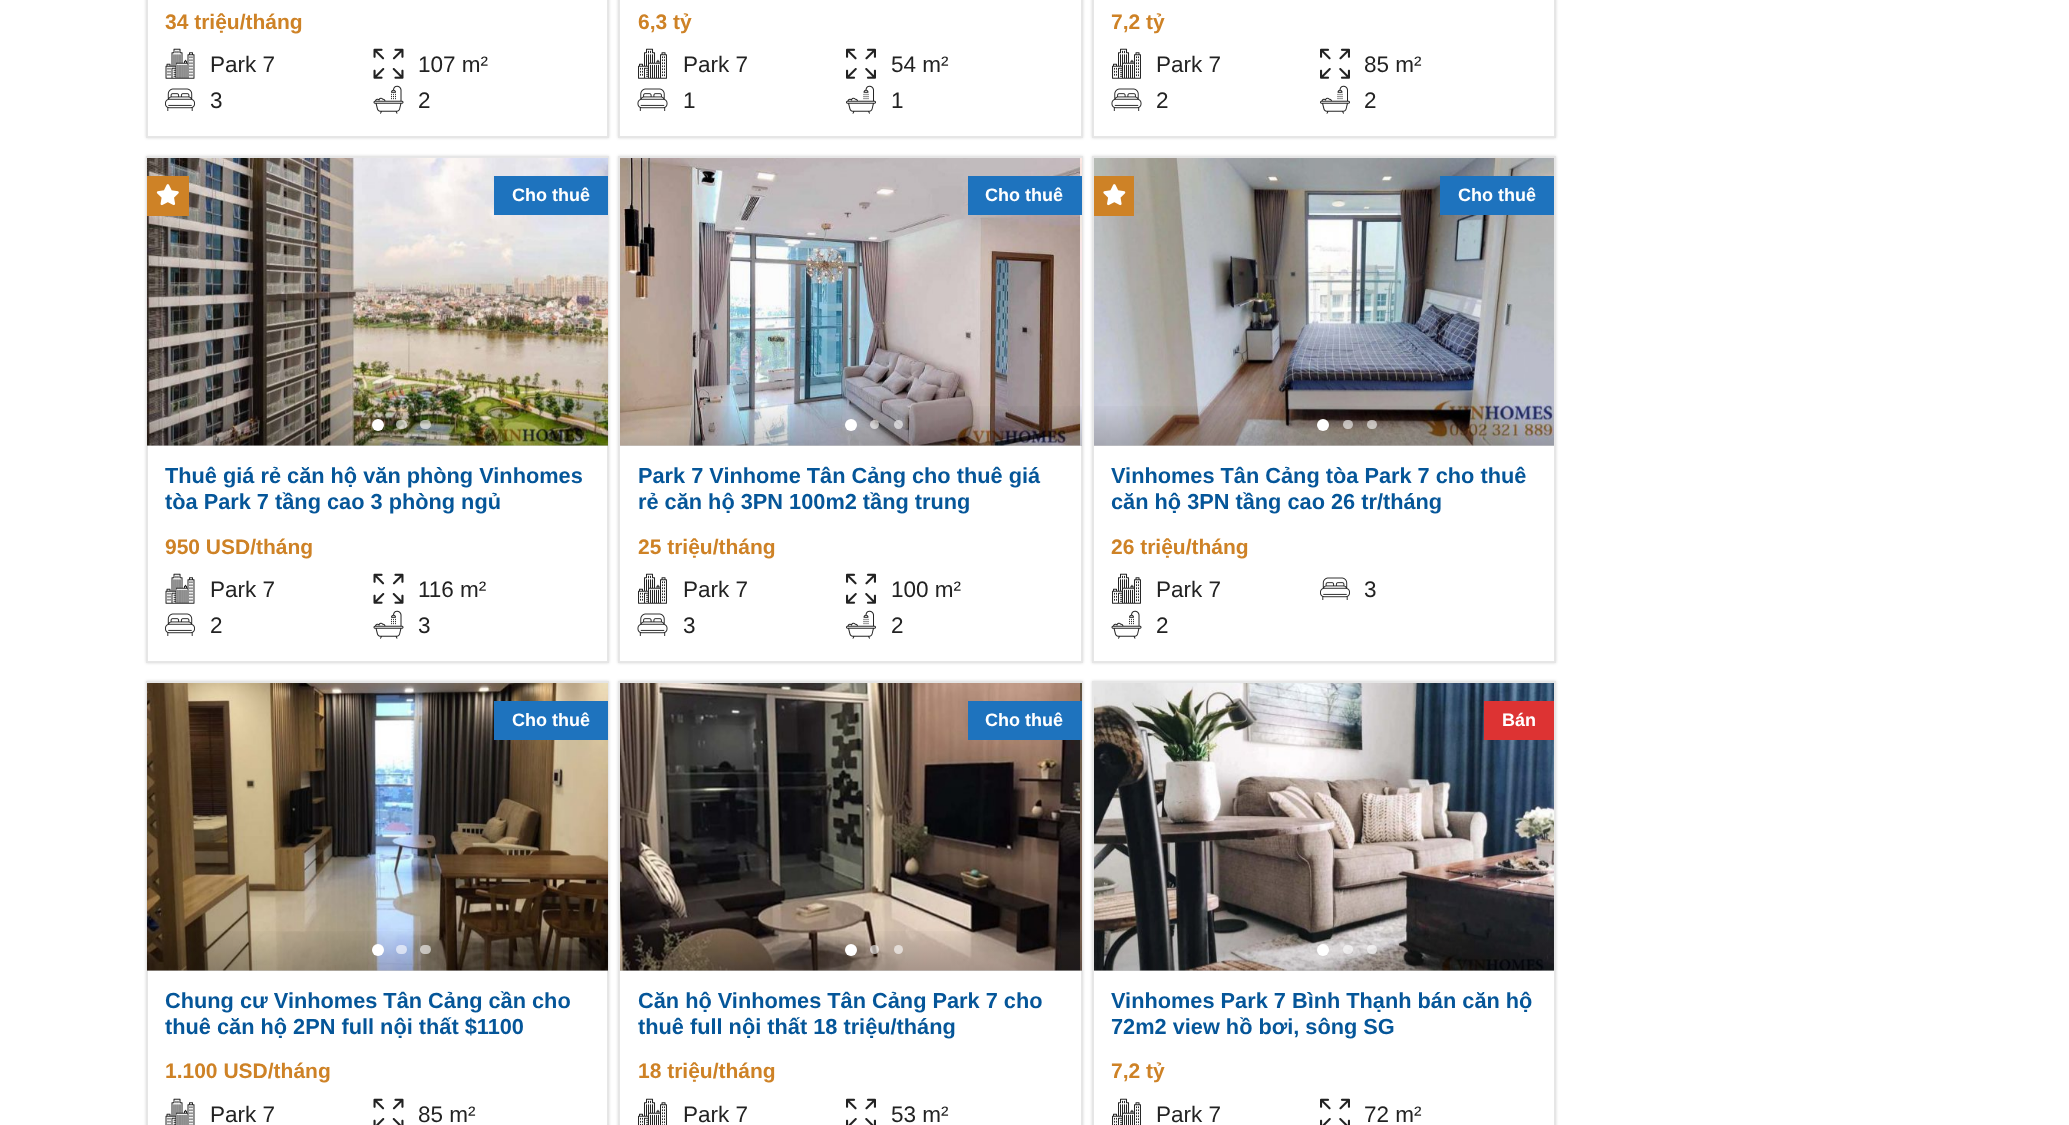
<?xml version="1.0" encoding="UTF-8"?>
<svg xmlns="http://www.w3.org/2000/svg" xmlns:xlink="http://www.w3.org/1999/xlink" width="2069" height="1125">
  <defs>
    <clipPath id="clip1"><path d="M 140 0 h 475 v 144 h -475 z m 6 -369 h 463 v 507 h -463 z" clip-rule="evenodd" /></clipPath>
    <clipPath id="clip2"><path d="M 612 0 h 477 v 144 h -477 z m 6 -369 h 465 v 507 h -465 z" clip-rule="evenodd" /></clipPath>
    <clipPath id="clip3"><path d="M 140 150 h 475 v 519 h -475 z m 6 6 h 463 v 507 h -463 z" clip-rule="evenodd" /></clipPath>
    <linearGradient id="g1" gradientUnits="userSpaceOnUse" x1="377" y1="401" x2="377" y2="446"><stop offset="0" stop-color="#000000" stop-opacity="0" /><stop offset="1" stop-color="#000000" stop-opacity="0.2" /></linearGradient>
    <clipPath id="clip4"><path d="M 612 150 h 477 v 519 h -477 z m 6 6 h 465 v 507 h -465 z" clip-rule="evenodd" /></clipPath>
    <linearGradient id="g2" gradientUnits="userSpaceOnUse" x1="851" y1="401" x2="851" y2="446"><stop offset="0" stop-color="#000000" stop-opacity="0" /><stop offset="1" stop-color="#000000" stop-opacity="0.2" /></linearGradient>
    <linearGradient id="g3" gradientUnits="userSpaceOnUse" x1="1324" y1="401" x2="1324" y2="446"><stop offset="0" stop-color="#000000" stop-opacity="0" /><stop offset="1" stop-color="#000000" stop-opacity="0.2" /></linearGradient>
    <clipPath id="clip5"><path d="M 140 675 h 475 v 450 h -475 z m 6 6 h 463 v 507 h -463 z" clip-rule="evenodd" /></clipPath>
    <linearGradient id="g4" gradientUnits="userSpaceOnUse" x1="377" y1="926" x2="377" y2="971"><stop offset="0" stop-color="#000000" stop-opacity="0" /><stop offset="1" stop-color="#000000" stop-opacity="0.2" /></linearGradient>
    <clipPath id="clip6"><path d="M 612 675 h 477 v 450 h -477 z m 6 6 h 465 v 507 h -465 z" clip-rule="evenodd" /></clipPath>
    <linearGradient id="g5" gradientUnits="userSpaceOnUse" x1="851" y1="926" x2="851" y2="971"><stop offset="0" stop-color="#000000" stop-opacity="0" /><stop offset="1" stop-color="#000000" stop-opacity="0.2" /></linearGradient>
    <linearGradient id="g6" gradientUnits="userSpaceOnUse" x1="1324" y1="926" x2="1324" y2="971"><stop offset="0" stop-color="#000000" stop-opacity="0" /><stop offset="1" stop-color="#000000" stop-opacity="0.2" /></linearGradient>
  </defs>
  <rect width="100%" height="100%" fill="#ffffff" />
  <g clip-path="url(#clip1)">
    <rect x="146" y="-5" width="463" height="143" fill="#000000" fill-opacity="0.15" filter="blur(1.5px)" />
  </g>
  <rect x="147" y="-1" width="461" height="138" fill="none" stroke="#e6e6e6" stroke-width="2" />
  <image x="165" y="48" width="30" height="31" xlink:href="image1.png" />
  <image x="373" y="48" width="31" height="31" xlink:href="image2.png" />
  <image x="165" y="88" width="30" height="23" xlink:href="image3.png" />
  <image x="373" y="85" width="31" height="29" xlink:href="image4.png" />
  <g clip-path="url(#clip2)">
    <rect x="618" y="-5" width="465" height="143" fill="#000000" fill-opacity="0.15" filter="blur(1.5px)" />
  </g>
  <rect x="619" y="-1" width="463" height="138" fill="none" stroke="#e6e6e6" stroke-width="2" />
  <image x="638" y="48" width="29" height="31" xlink:href="image5.png" />
  <image x="846" y="48" width="30" height="31" xlink:href="image6.png" />
  <image x="637" y="88" width="31" height="23" xlink:href="image7.png" />
  <image x="846" y="85" width="30" height="29" xlink:href="image8.png" />
  <rect x="1092" y="-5" width="464" height="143" fill="#000000" fill-opacity="0.15" filter="blur(1.5px)" />
  <rect x="1093" y="-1" width="462" height="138" fill="#ffffff" stroke="#e6e6e6" stroke-width="2" />
  <image x="1112" y="48" width="29" height="31" xlink:href="image5.png" />
  <image x="1320" y="48" width="30" height="31" xlink:href="image6.png" />
  <image x="1111" y="88" width="31" height="23" xlink:href="image7.png" />
  <image x="1320" y="85" width="30" height="29" xlink:href="image8.png" />
  <g clip-path="url(#clip3)">
    <rect x="146" y="156" width="463" height="507" fill="#000000" fill-opacity="0.15" filter="blur(1.5px)" />
  </g>
  <rect x="147" y="157" width="461" height="505" fill="none" stroke="#e6e6e6" stroke-width="2" />
  <image x="147" y="158" width="461" height="288" xlink:href="image9.png" />
  <rect x="147" y="176" width="42" height="40" fill="#ce8226" />
  <image x="156" y="184" width="23" height="22" xlink:href="image10.png" />
  <rect x="494" y="176" width="114" height="39" fill="#1e73be" />
  <rect x="147" y="406" width="461" height="40" fill="url(#g1)" />
  <circle cx="378" cy="425" r="6" fill="#ffffff" />
  <rect x="396" y="420" width="11" height="9" rx="4.5" fill="#ffffff" fill-opacity="0.6" />
  <rect x="420" y="420" width="11" height="9" rx="4.5" fill="#ffffff" fill-opacity="0.6" />
  <image x="165" y="573" width="30" height="31" xlink:href="image1.png" />
  <image x="373" y="573" width="31" height="31" xlink:href="image2.png" />
  <image x="165" y="613" width="30" height="23" xlink:href="image3.png" />
  <image x="373" y="610" width="31" height="29" xlink:href="image4.png" />
  <g clip-path="url(#clip4)">
    <rect x="618" y="156" width="465" height="507" fill="#000000" fill-opacity="0.15" filter="blur(1.5px)" />
  </g>
  <rect x="619" y="157" width="463" height="505" fill="none" stroke="#e6e6e6" stroke-width="2" />
  <image x="620" y="158" width="460" height="288" xlink:href="image11.png" />
  <image x="1080" y="158" width="2" height="288" xlink:href="image12.png" />
  <rect x="968" y="176" width="114" height="39" fill="#1e73be" />
  <rect x="620" y="406" width="462" height="40" fill="url(#g2)" />
  <circle cx="851" cy="425" r="6" fill="#ffffff" />
  <circle cx="874.5" cy="424.5" r="4.5" fill="#ffffff" fill-opacity="0.6" />
  <circle cx="898.5" cy="424.5" r="4.5" fill="#ffffff" fill-opacity="0.6" />
  <image x="638" y="573" width="29" height="31" xlink:href="image5.png" />
  <image x="846" y="573" width="30" height="31" xlink:href="image6.png" />
  <image x="637" y="613" width="31" height="23" xlink:href="image7.png" />
  <image x="846" y="610" width="30" height="29" xlink:href="image8.png" />
  <rect x="1092" y="156" width="464" height="507" fill="#000000" fill-opacity="0.15" filter="blur(1.5px)" />
  <rect x="1094" y="445" width="460" height="216" fill="#ffffff" />
  <rect x="1093" y="157" width="462" height="505" fill="none" stroke="#e6e6e6" stroke-width="2" />
  <image x="1094" y="158" width="460" height="288" xlink:href="image13.png" />
  <rect x="1094" y="176" width="40" height="40" fill="#ce8226" />
  <image x="1103" y="184" width="23" height="22" xlink:href="image14.png" />
  <rect x="1440" y="176" width="114" height="39" fill="#1e73be" />
  <rect x="1094" y="406" width="460" height="40" fill="url(#g3)" />
  <circle cx="1323" cy="425" r="6" fill="#ffffff" />
  <rect x="1343" y="420" width="10" height="9" rx="4.5" fill="#ffffff" fill-opacity="0.6" />
  <rect x="1367" y="420" width="10" height="9" rx="4.5" fill="#ffffff" fill-opacity="0.6" />
  <image x="1112" y="573" width="29" height="31" xlink:href="image5.png" />
  <image x="1320" y="577" width="30" height="23" xlink:href="image3.png" />
  <image x="1111" y="610" width="31" height="29" xlink:href="image4.png" />
  <g clip-path="url(#clip5)">
    <rect x="146" y="681" width="463" height="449" fill="#000000" fill-opacity="0.15" filter="blur(1.5px)" />
  </g>
  <rect x="147" y="682" width="461" height="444" fill="none" stroke="#e6e6e6" stroke-width="2" />
  <image x="147" y="683" width="461" height="288" xlink:href="image15.png" />
  <rect x="494" y="701" width="114" height="39" fill="#1e73be" />
  <rect x="147" y="931" width="461" height="40" fill="url(#g4)" />
  <circle cx="378" cy="950" r="6" fill="#ffffff" />
  <rect x="396" y="945" width="11" height="9" rx="4.5" fill="#ffffff" fill-opacity="0.6" />
  <rect x="420" y="945" width="11" height="9" rx="4.5" fill="#ffffff" fill-opacity="0.6" />
  <image x="165" y="1098" width="30" height="27" xlink:href="image16.png" />
  <image x="373" y="1098" width="31" height="27" xlink:href="image17.png" />
  <g clip-path="url(#clip6)">
    <rect x="618" y="681" width="465" height="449" fill="#000000" fill-opacity="0.15" filter="blur(1.5px)" />
  </g>
  <rect x="619" y="682" width="463" height="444" fill="none" stroke="#e6e6e6" stroke-width="2" />
  <image x="620" y="683" width="460" height="288" xlink:href="image18.png" />
  <image x="1080" y="683" width="2" height="288" xlink:href="image19.png" />
  <rect x="968" y="701" width="114" height="39" fill="#1e73be" />
  <rect x="620" y="931" width="462" height="40" fill="url(#g5)" />
  <circle cx="851" cy="950" r="6" fill="#ffffff" />
  <circle cx="874.5" cy="949.5" r="4.5" fill="#ffffff" fill-opacity="0.6" />
  <circle cx="898.5" cy="949.5" r="4.5" fill="#ffffff" fill-opacity="0.6" />
  <image x="638" y="1098" width="29" height="27" xlink:href="image20.png" />
  <image x="846" y="1098" width="30" height="27" xlink:href="image21.png" />
  <rect x="1092" y="681" width="464" height="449" fill="#000000" fill-opacity="0.15" filter="blur(1.5px)" />
  <rect x="1094" y="970" width="460" height="155" fill="#ffffff" />
  <rect x="1093" y="682" width="462" height="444" fill="none" stroke="#e6e6e6" stroke-width="2" />
  <image x="1094" y="683" width="460" height="288" xlink:href="image22.png" />
  <rect x="1484" y="701" width="70" height="39" fill="#dd3333" />
  <rect x="1094" y="931" width="460" height="40" fill="url(#g6)" />
  <circle cx="1323" cy="950" r="6" fill="#ffffff" />
  <rect x="1343" y="945" width="10" height="9" rx="4.5" fill="#ffffff" fill-opacity="0.6" />
  <rect x="1367" y="945" width="10" height="9" rx="4.5" fill="#ffffff" fill-opacity="0.6" />
  <image x="1112" y="1098" width="29" height="27" xlink:href="image20.png" />
  <image x="1320" y="1098" width="30" height="27" xlink:href="image21.png" />
  <text x="165" y="29" style="font-family: Liberation Sans; font-size: 21px; font-weight: bold; fill: #ce8226">34 triệu/tháng</text>
  <text x="210" y="72" style="font-family: Liberation Sans; font-size: 22.5px; fill: #222222">Park 7</text>
  <text x="418" y="72" style="font-family: Liberation Sans; font-size: 22.5px; fill: #222222">107 m²</text>
  <text x="210" y="108" style="font-family: Liberation Sans; font-size: 22.5px; fill: #222222">3</text>
  <text x="418" y="108" style="font-family: Liberation Sans; font-size: 22.5px; fill: #222222">2</text>
  <text x="638" y="29" style="font-family: Liberation Sans; font-size: 21px; font-weight: bold; fill: #ce8226">6,3 tỷ</text>
  <text x="683" y="72" style="font-family: Liberation Sans; font-size: 22.5px; fill: #222222">Park 7</text>
  <text x="891" y="72" style="font-family: Liberation Sans; font-size: 22.5px; fill: #222222">54 m²</text>
  <text x="683" y="108" style="font-family: Liberation Sans; font-size: 22.5px; fill: #222222">1</text>
  <text x="891" y="108" style="font-family: Liberation Sans; font-size: 22.5px; fill: #222222">1</text>
  <text x="1111" y="29" style="font-family: Liberation Sans; font-size: 21px; font-weight: bold; fill: #ce8226">7,2 tỷ</text>
  <text x="1156" y="72" style="font-family: Liberation Sans; font-size: 22.5px; fill: #222222">Park 7</text>
  <text x="1364" y="72" style="font-family: Liberation Sans; font-size: 22.5px; fill: #222222">85 m²</text>
  <text x="1156" y="108" style="font-family: Liberation Sans; font-size: 22.5px; fill: #222222">2</text>
  <text x="1364" y="108" style="font-family: Liberation Sans; font-size: 22.5px; fill: #222222">2</text>
  <text x="512" y="201" style="font-family: Liberation Sans; font-size: 18px; font-weight: bold; fill: #ffffff">Cho thuê</text>
  <text x="165" y="483" style="font-family: Liberation Sans; font-size: 21.75px; font-weight: bold; fill: #055699">Thuê giá rẻ căn hộ văn phòng Vinhomes</text>
  <text x="165" y="509" style="font-family: Liberation Sans; font-size: 21.75px; font-weight: bold; fill: #055699">tòa Park 7 tầng cao 3 phòng ngủ</text>
  <text x="165" y="554" style="font-family: Liberation Sans; font-size: 21px; font-weight: bold; fill: #ce8226">950 USD/tháng</text>
  <text x="210" y="597" style="font-family: Liberation Sans; font-size: 22.5px; fill: #222222">Park 7</text>
  <text x="418" y="597" style="font-family: Liberation Sans; font-size: 22.5px; fill: #222222">116 m²</text>
  <text x="210" y="633" style="font-family: Liberation Sans; font-size: 22.5px; fill: #222222">2</text>
  <text x="418" y="633" style="font-family: Liberation Sans; font-size: 22.5px; fill: #222222">3</text>
  <text x="985" y="201" style="font-family: Liberation Sans; font-size: 18px; font-weight: bold; fill: #ffffff">Cho thuê</text>
  <text x="638" y="483" style="font-family: Liberation Sans; font-size: 21.75px; font-weight: bold; fill: #055699">Park 7 Vinhome Tân Cảng cho thuê giá</text>
  <text x="638" y="509" style="font-family: Liberation Sans; font-size: 21.75px; font-weight: bold; fill: #055699">rẻ căn hộ 3PN 100m2 tầng trung</text>
  <text x="638" y="554" style="font-family: Liberation Sans; font-size: 21px; font-weight: bold; fill: #ce8226">25 triệu/tháng</text>
  <text x="683" y="597" style="font-family: Liberation Sans; font-size: 22.5px; fill: #222222">Park 7</text>
  <text x="891" y="597" style="font-family: Liberation Sans; font-size: 22.5px; fill: #222222">100 m²</text>
  <text x="683" y="633" style="font-family: Liberation Sans; font-size: 22.5px; fill: #222222">3</text>
  <text x="891" y="633" style="font-family: Liberation Sans; font-size: 22.5px; fill: #222222">2</text>
  <text x="1458" y="201" style="font-family: Liberation Sans; font-size: 18px; font-weight: bold; fill: #ffffff">Cho thuê</text>
  <text x="1111" y="483" style="font-family: Liberation Sans; font-size: 21.75px; font-weight: bold; fill: #055699">Vinhomes Tân Cảng tòa Park 7 cho thuê</text>
  <text x="1111" y="509" style="font-family: Liberation Sans; font-size: 21.75px; font-weight: bold; fill: #055699">căn hộ 3PN tầng cao 26 tr/tháng</text>
  <text x="1111" y="554" style="font-family: Liberation Sans; font-size: 21px; font-weight: bold; fill: #ce8226">26 triệu/tháng</text>
  <text x="1156" y="597" style="font-family: Liberation Sans; font-size: 22.5px; fill: #222222">Park 7</text>
  <text x="1364" y="597" style="font-family: Liberation Sans; font-size: 22.5px; fill: #222222">3</text>
  <text x="1156" y="633" style="font-family: Liberation Sans; font-size: 22.5px; fill: #222222">2</text>
  <text x="512" y="726" style="font-family: Liberation Sans; font-size: 18px; font-weight: bold; fill: #ffffff">Cho thuê</text>
  <text x="165" y="1008" style="font-family: Liberation Sans; font-size: 21.75px; font-weight: bold; fill: #055699">Chung cư Vinhomes Tân Cảng cần cho</text>
  <text x="165" y="1034" style="font-family: Liberation Sans; font-size: 21.75px; font-weight: bold; fill: #055699">thuê căn hộ 2PN full nội thất $1100</text>
  <text x="165" y="1078" style="font-family: Liberation Sans; font-size: 21px; font-weight: bold; fill: #ce8226">1.100 USD/tháng</text>
  <text x="210" y="1122" style="font-family: Liberation Sans; font-size: 22.5px; fill: #222222">Park 7</text>
  <text x="418" y="1122" style="font-family: Liberation Sans; font-size: 22.5px; fill: #222222">85 m²</text>
  <text x="985" y="726" style="font-family: Liberation Sans; font-size: 18px; font-weight: bold; fill: #ffffff">Cho thuê</text>
  <text x="638" y="1008" style="font-family: Liberation Sans; font-size: 21.75px; font-weight: bold; fill: #055699">Căn hộ Vinhomes Tân Cảng Park 7 cho</text>
  <text x="638" y="1034" style="font-family: Liberation Sans; font-size: 21.75px; font-weight: bold; fill: #055699">thuê full nội thất 18 triệu/tháng</text>
  <text x="638" y="1078" style="font-family: Liberation Sans; font-size: 21px; font-weight: bold; fill: #ce8226">18 triệu/tháng</text>
  <text x="683" y="1122" style="font-family: Liberation Sans; font-size: 22.5px; fill: #222222">Park 7</text>
  <text x="891" y="1122" style="font-family: Liberation Sans; font-size: 22.5px; fill: #222222">53 m²</text>
  <text x="1502" y="726" style="font-family: Liberation Sans; font-size: 18px; font-weight: bold; fill: #ffffff">Bán</text>
  <text x="1111" y="1008" style="font-family: Liberation Sans; font-size: 21.75px; font-weight: bold; fill: #055699">Vinhomes Park 7 Bình Thạnh bán căn hộ</text>
  <text x="1111" y="1034" style="font-family: Liberation Sans; font-size: 21.75px; font-weight: bold; fill: #055699">72m2 view hồ bơi, sông SG</text>
  <text x="1111" y="1078" style="font-family: Liberation Sans; font-size: 21px; font-weight: bold; fill: #ce8226">7,2 tỷ</text>
  <text x="1156" y="1122" style="font-family: Liberation Sans; font-size: 22.5px; fill: #222222">Park 7</text>
  <text x="1364" y="1122" style="font-family: Liberation Sans; font-size: 22.5px; fill: #222222">72 m²</text>
</svg>
